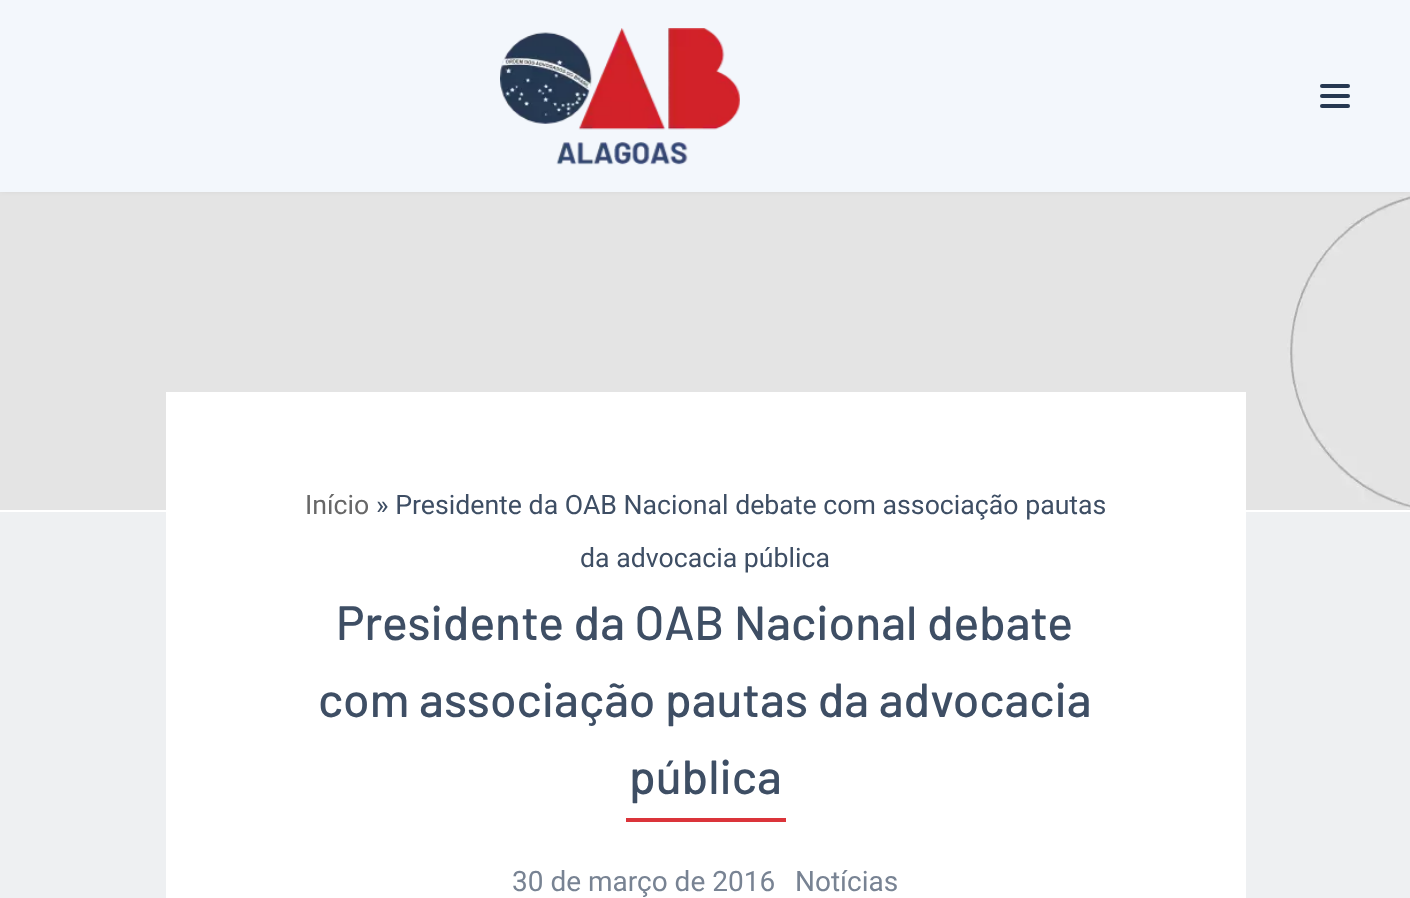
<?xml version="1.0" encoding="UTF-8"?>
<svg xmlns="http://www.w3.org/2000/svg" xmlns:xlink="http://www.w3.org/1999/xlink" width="1410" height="898">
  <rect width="100%" height="100%" fill="#ffffff" />
  <image x="0" y="192" width="1410" height="318" xlink:href="image2.png" />
  <rect y="-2" width="1410" height="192" fill="#000000" fill-opacity="0.1" filter="blur(3px)" />
  <rect width="1410" height="192" fill="#f3f7fc" />
  <image x="500" y="28" width="240" height="137" xlink:href="image1.png" />
  <rect x="1320" y="84" width="30" height="4" rx="2" fill="#263851" />
  <rect x="1320" y="94" width="30" height="4" rx="2" fill="#263851" />
  <rect x="1320" y="104" width="30" height="4" rx="2" fill="#263851" />
  <rect y="512" width="1410" height="386" fill="#eef0f2" />
  <rect x="166" y="392" width="1080" height="506" fill="#ffffff" />
  <rect x="626" y="818" width="160" height="4" fill="#db343a" />
  <text x="305" y="514" style="font-family: Roboto; font-size: 26.7px; fill: #676767">Início</text>
  <text x="376" y="514" style="font-family: Roboto; font-size: 26.7px; fill: #3e4e64">» Presidente da OAB Nacional debate com associação pautas</text>
  <text x="580" y="567" style="font-family: Roboto; font-size: 26.7px; fill: #3e4e64">da advocacia pública</text>
  <text x="336" y="640" style="font-family: Barlow; font-size: 48px; font-weight: 500; fill: #3e4e64">Presidente da OAB Nacional debate</text>
  <text x="318" y="717" style="font-family: Barlow; font-size: 48px; font-weight: 500; fill: #3e4e64">com associação pautas da advocacia</text>
  <text x="629" y="794" style="font-family: Barlow; font-size: 48px; font-weight: 500; fill: #3e4e64">pública</text>
  <text x="512" y="891" style="font-family: Roboto; font-size: 28px; fill: #788393">30 de março de 2016</text>
  <text x="795" y="891" style="font-family: Roboto; font-size: 28px; fill: #788393">Notícias</text>
</svg>
